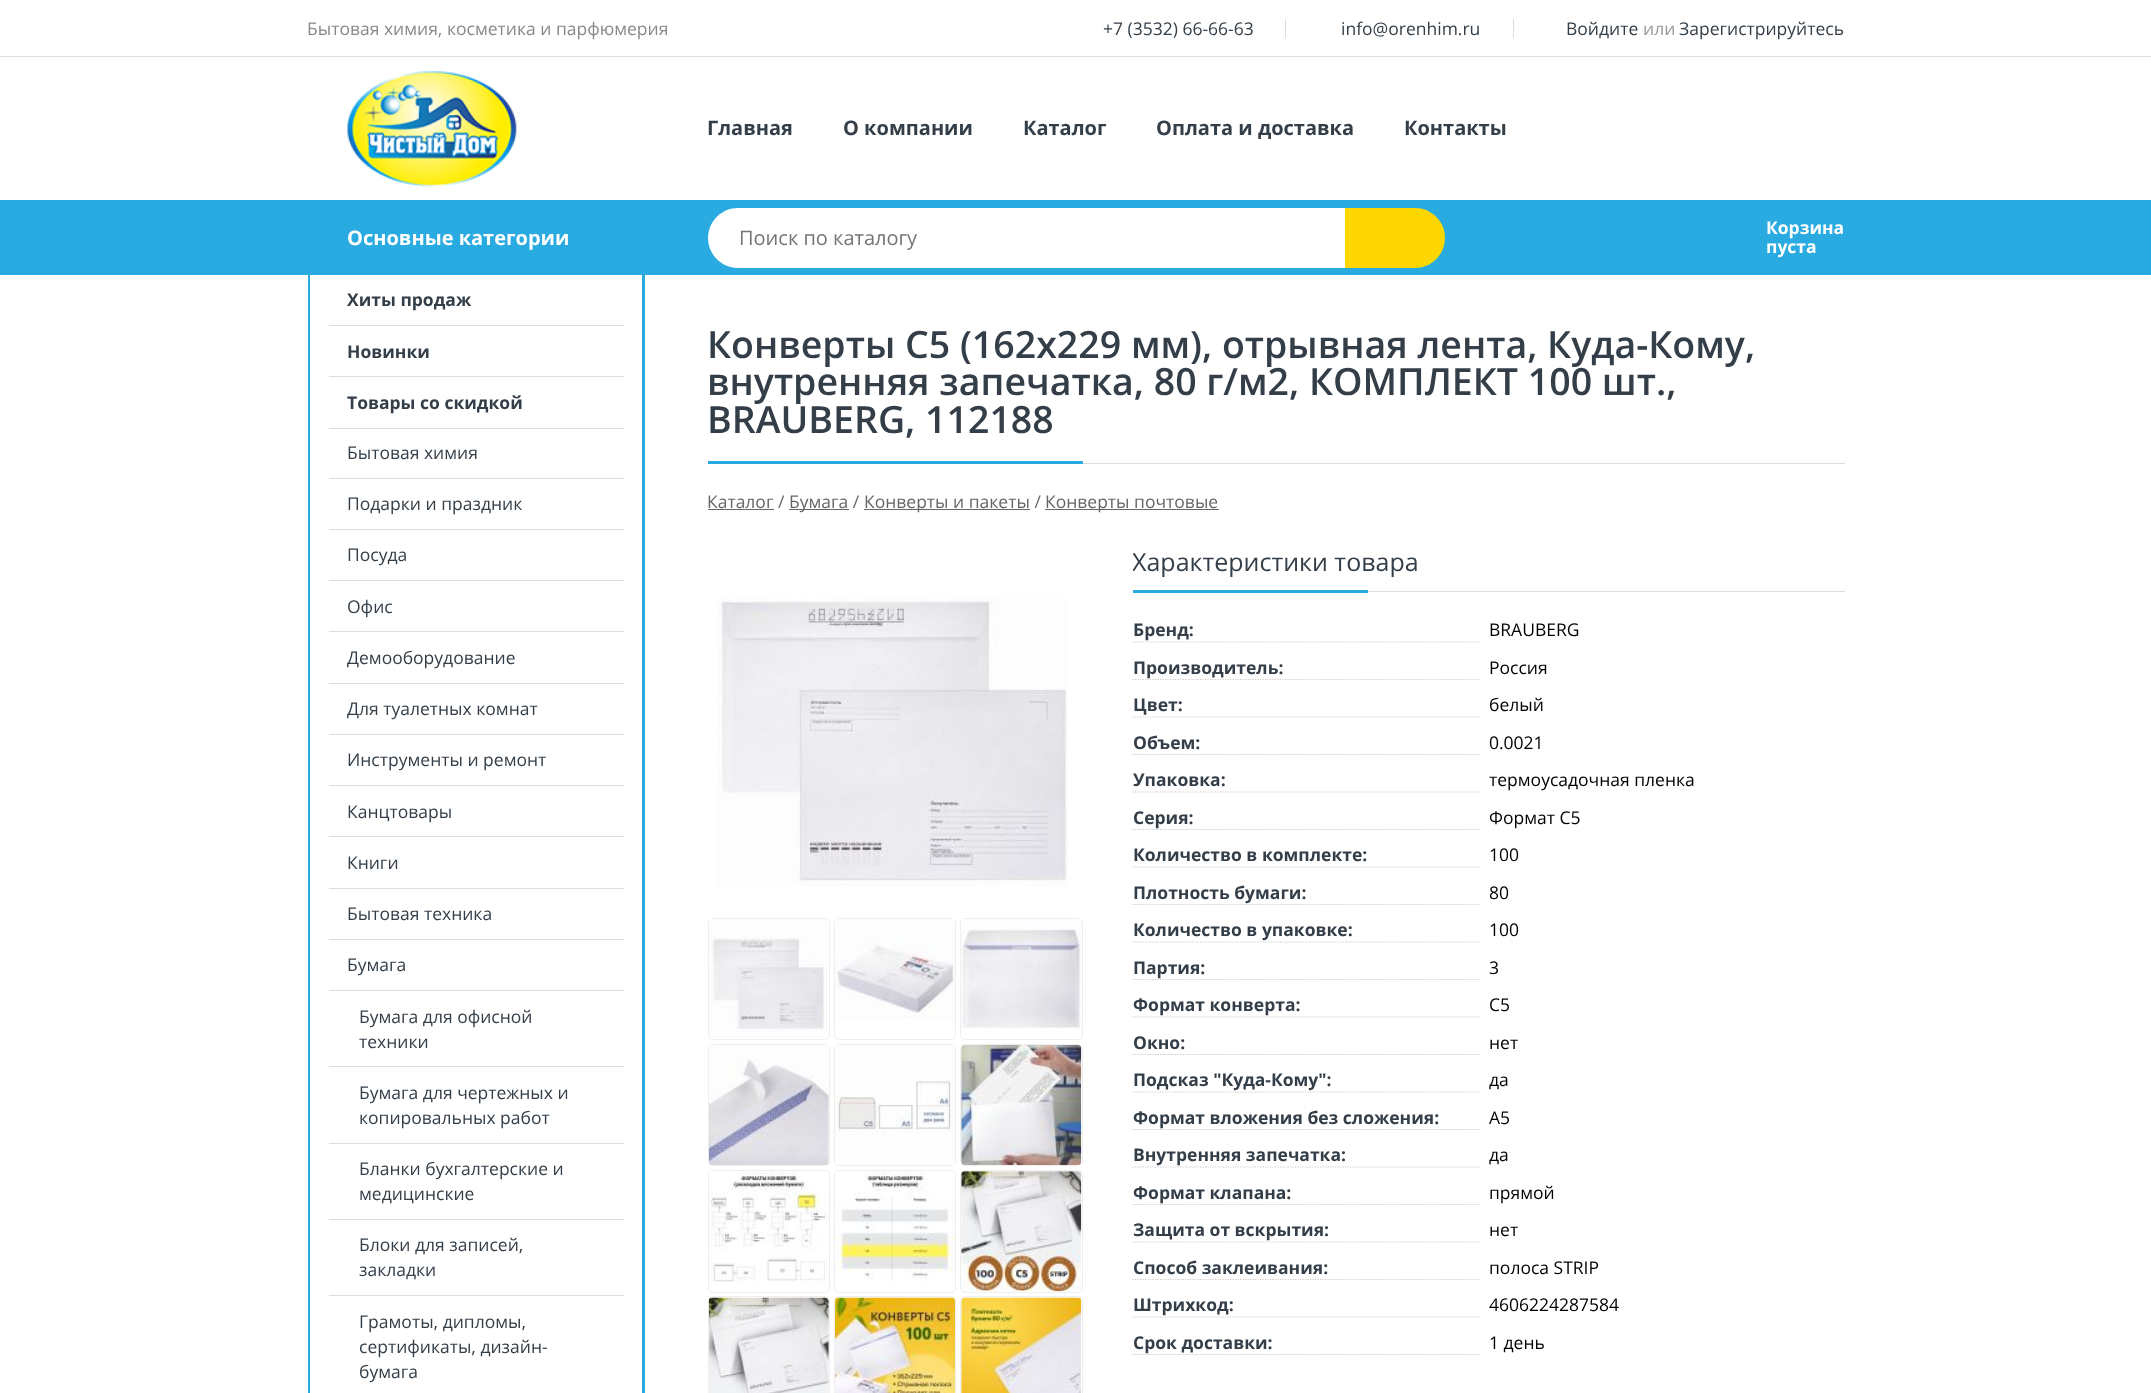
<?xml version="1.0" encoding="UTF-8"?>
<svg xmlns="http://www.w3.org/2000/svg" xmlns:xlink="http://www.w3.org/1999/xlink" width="2151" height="1393">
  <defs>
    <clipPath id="clip1"><rect x="1133" y="538" width="712" height="836" /></clipPath>
  </defs>
  <rect width="100%" height="100%" fill="#ffffff" />
  <rect y="56" width="2151" height="1" fill="#dddddd" />
  <rect x="1285" y="19" width="1" height="19" fill="#dddddd" />
  <rect x="1513" y="19" width="1" height="19" fill="#dddddd" />
  <image x="347" y="71" width="170" height="116" xlink:href="image1.png" />
  <rect y="200" width="2151" height="75" fill="#29abe2" />
  <path d="M 738 208 h 607 v 60 h -607 c -16.5 0 -30 -13.5 -30 -30 c 0 -16.5 13.5 -30 30 -30 z" fill="#ffffff" />
  <path d="M 1345 208 h 70 c 16.5 0 30 13.5 30 30 c 0 16.5 -13.5 30 -30 30 h -70 z" fill="#fed700" />
  <path d="M 308 275 h 337 v 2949 c 0 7 -6 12 -13 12 h -312 c -7 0 -12 -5 -12 -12 z m 2 0 h 332 v 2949 c 0 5 -4 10 -10 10 h -312 c -6 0 -10 -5 -10 -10 z" fill="#29abe2" fill-rule="evenodd" />
  <rect x="329" y="325" width="295" height="1" fill="#dddddd" />
  <rect x="329" y="376" width="295" height="1" fill="#dddddd" />
  <rect x="329" y="428" width="295" height="1" fill="#dddddd" />
  <rect x="329" y="478" width="295" height="1" fill="#dddddd" />
  <rect x="329" y="529" width="295" height="1" fill="#dddddd" />
  <rect x="329" y="580" width="295" height="1" fill="#dddddd" />
  <rect x="329" y="631" width="295" height="1" fill="#dddddd" />
  <rect x="329" y="683" width="295" height="1" fill="#dddddd" />
  <rect x="329" y="734" width="295" height="1" fill="#dddddd" />
  <rect x="329" y="785" width="295" height="1" fill="#dddddd" />
  <rect x="329" y="836" width="295" height="1" fill="#dddddd" />
  <rect x="329" y="888" width="295" height="1" fill="#dddddd" />
  <rect x="329" y="939" width="295" height="1" fill="#dddddd" />
  <rect x="329" y="990" width="295" height="1" fill="#dddddd" />
  <rect x="329" y="1066" width="295" height="1" fill="#dddddd" />
  <rect x="329" y="1143" width="295" height="1" fill="#dddddd" />
  <rect x="329" y="1219" width="295" height="1" fill="#dddddd" />
  <rect x="329" y="1295" width="295" height="1" fill="#dddddd" />
  <rect x="1083" y="463" width="762" height="1" fill="#dddddd" />
  <rect x="708" y="461" width="375" height="3" fill="#29abe2" />
  <rect x="708" y="509" width="66" height="1" fill="#666666" />
  <rect x="789" y="509" width="60" height="1" fill="#666666" />
  <rect x="864" y="509" width="166" height="1" fill="#666666" />
  <rect x="1045" y="509" width="174" height="1" fill="#666666" />
  <image x="717" y="598" width="351" height="288" xlink:href="image2.png" />
  <rect x="708.5" y="918.5" width="121" height="121" rx="4.5" fill="none" stroke="#eeeeee" />
  <image x="709" y="919" width="119" height="119" xlink:href="image3.png" />
  <rect x="834.5" y="918.5" width="121" height="121" rx="4.5" fill="none" stroke="#eeeeee" />
  <image x="835" y="919" width="120" height="100" xlink:href="image4.png" />
  <rect x="960.5" y="918.5" width="122" height="121" rx="4.5" fill="none" stroke="#eeeeee" />
  <image x="961" y="919" width="120" height="110" xlink:href="image5.png" />
  <rect x="708.5" y="1044.5" width="121" height="121" rx="4.5" fill="none" stroke="#eeeeee" />
  <image x="708" y="1045" width="121" height="120" xlink:href="image6.png" />
  <rect x="834.5" y="1044.5" width="121" height="121" rx="4.5" fill="none" stroke="#eeeeee" />
  <image x="835" y="1045" width="120" height="120" xlink:href="image7.png" />
  <rect x="960.5" y="1044.5" width="122" height="121" rx="4.5" fill="none" stroke="#eeeeee" />
  <image x="961" y="1045" width="121" height="120" xlink:href="image8.png" />
  <rect x="708.5" y="1170.5" width="121" height="122" rx="4.5" fill="none" stroke="#eeeeee" />
  <image x="709" y="1171" width="120" height="119" xlink:href="image9.png" />
  <rect x="834.5" y="1170.5" width="121" height="122" rx="4.5" fill="none" stroke="#eeeeee" />
  <image x="835" y="1171" width="120" height="110" xlink:href="image10.png" />
  <rect x="960.5" y="1170.5" width="122" height="122" rx="4.5" fill="none" stroke="#eeeeee" />
  <image x="961" y="1171" width="121" height="121" xlink:href="image11.png" />
  <rect x="708.5" y="1296.5" width="121" height="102" rx="4.5" fill="none" stroke="#eeeeee" />
  <image x="708" y="1297" width="121" height="96" xlink:href="image12.png" />
  <rect x="834.5" y="1296.5" width="121" height="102" rx="4.5" fill="none" stroke="#eeeeee" />
  <image x="835" y="1297" width="120" height="96" xlink:href="image13.png" />
  <rect x="960.5" y="1296.5" width="122" height="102" rx="4.5" fill="none" stroke="#eeeeee" />
  <image x="961" y="1297" width="121" height="96" xlink:href="image14.png" />
  <rect x="1368" y="591" width="477" height="1" fill="#dddddd" />
  <rect x="1133" y="590" width="235" height="3" fill="#29abe2" />
  <path d="M 1132.5 642 h 346.5" fill="none" stroke="#cccccc" stroke-width="1.2" stroke-dasharray="1.25 1.25" />
  <path d="M 1132.5 679.5 h 346.5" fill="none" stroke="#cccccc" stroke-width="1.2" stroke-dasharray="1.25 1.25" />
  <path d="M 1132.5 717 h 346.5" fill="none" stroke="#cccccc" stroke-width="1.2" stroke-dasharray="1.25 1.25" />
  <path d="M 1132.5 754.5 h 346.5" fill="none" stroke="#cccccc" stroke-width="1.2" stroke-dasharray="1.25 1.25" />
  <path d="M 1132.5 792 h 346.5" fill="none" stroke="#cccccc" stroke-width="1.2" stroke-dasharray="1.25 1.25" />
  <path d="M 1132.5 829.5 h 346.5" fill="none" stroke="#cccccc" stroke-width="1.2" stroke-dasharray="1.25 1.25" />
  <path d="M 1132.5 867 h 346.5" fill="none" stroke="#cccccc" stroke-width="1.2" stroke-dasharray="1.25 1.25" />
  <path d="M 1132.5 904.5 h 346.5" fill="none" stroke="#cccccc" stroke-width="1.2" stroke-dasharray="1.25 1.25" />
  <path d="M 1132.5 942 h 346.5" fill="none" stroke="#cccccc" stroke-width="1.2" stroke-dasharray="1.25 1.25" />
  <path d="M 1132.5 979.5 h 346.5" fill="none" stroke="#cccccc" stroke-width="1.2" stroke-dasharray="1.25 1.25" />
  <path d="M 1132.5 1017 h 346.5" fill="none" stroke="#cccccc" stroke-width="1.2" stroke-dasharray="1.25 1.25" />
  <path d="M 1132.5 1054.5 h 346.5" fill="none" stroke="#cccccc" stroke-width="1.2" stroke-dasharray="1.25 1.25" />
  <path d="M 1132.5 1092 h 346.5" fill="none" stroke="#cccccc" stroke-width="1.2" stroke-dasharray="1.25 1.25" />
  <path d="M 1132.5 1129.5 h 346.5" fill="none" stroke="#cccccc" stroke-width="1.2" stroke-dasharray="1.25 1.25" />
  <path d="M 1132.5 1167 h 346.5" fill="none" stroke="#cccccc" stroke-width="1.2" stroke-dasharray="1.25 1.25" />
  <path d="M 1132.5 1204.5 h 346.5" fill="none" stroke="#cccccc" stroke-width="1.2" stroke-dasharray="1.25 1.25" />
  <path d="M 1132.5 1242 h 346.5" fill="none" stroke="#cccccc" stroke-width="1.2" stroke-dasharray="1.25 1.25" />
  <path d="M 1132.5 1279.5 h 346.5" fill="none" stroke="#cccccc" stroke-width="1.2" stroke-dasharray="1.25 1.25" />
  <path d="M 1132.5 1317 h 346.5" fill="none" stroke="#cccccc" stroke-width="1.2" stroke-dasharray="1.25 1.25" />
  <path d="M 1132.5 1354.5 h 346.5" fill="none" stroke="#cccccc" stroke-width="1.2" stroke-dasharray="1.25 1.25" />
  <text x="307" y="35" style="font-family: Open Sans; font-size: 17.5px; fill: #888888">Бытовая химия, косметика и парфюмерия</text>
  <text x="1103" y="35" style="font-family: Open Sans; font-size: 17.5px; fill: #333e48">+7 (3532) 66-66-63</text>
  <text x="1341" y="35" style="font-family: Open Sans; font-size: 17.5px; fill: #333e48">info@orenhim.ru</text>
  <text x="1566" y="35" style="font-family: Open Sans; font-size: 17.5px; fill: #333e48">Войдите</text>
  <text x="1643" y="35" style="font-family: Open Sans; font-size: 17.5px; fill: #999999">или</text>
  <text x="1679" y="35" style="font-family: Open Sans; font-size: 17.5px; fill: #333e48">Зарегистрируйтесь</text>
  <text x="707" y="135" style="font-family: Open Sans; font-size: 20px; font-weight: bold; fill: #333e48">Главная</text>
  <text x="843" y="135" style="font-family: Open Sans; font-size: 20px; font-weight: bold; fill: #333e48">О компании</text>
  <text x="1023" y="135" style="font-family: Open Sans; font-size: 20px; font-weight: bold; fill: #333e48">Каталог</text>
  <text x="1156" y="135" style="font-family: Open Sans; font-size: 20px; font-weight: bold; fill: #333e48">Оплата и доставка</text>
  <text x="1404" y="135" style="font-family: Open Sans; font-size: 20px; font-weight: bold; fill: #333e48">Контакты</text>
  <text x="347" y="245" style="font-family: Open Sans; font-size: 20px; font-weight: bold; fill: #ffffff">Основные категории</text>
  <text x="739" y="245" style="font-family: Open Sans; font-size: 20px; fill: #757575">Поиск по каталогу</text>
  <text x="1766" y="234" style="font-family: Open Sans; font-size: 17.5px; font-weight: bold; fill: #ffffff">Корзина</text>
  <text x="1766" y="253" style="font-family: Open Sans; font-size: 17.5px; font-weight: bold; fill: #ffffff">пуста</text>
  <text x="347" y="306" style="font-family: Open Sans; font-size: 17.5px; font-weight: bold; fill: #333e48">Хиты продаж</text>
  <text x="347" y="358" style="font-family: Open Sans; font-size: 17.5px; font-weight: bold; fill: #333e48">Новинки</text>
  <text x="347" y="409" style="font-family: Open Sans; font-size: 17.5px; font-weight: bold; fill: #333e48">Товары со скидкой</text>
  <text x="347" y="459" style="font-family: Open Sans; font-size: 17.5px; fill: #333e48">Бытовая химия</text>
  <text x="347" y="510" style="font-family: Open Sans; font-size: 17.5px; fill: #333e48">Подарки и праздник</text>
  <text x="347" y="561" style="font-family: Open Sans; font-size: 17.5px; fill: #333e48">Посуда</text>
  <text x="347" y="613" style="font-family: Open Sans; font-size: 17.5px; fill: #333e48">Офис</text>
  <text x="347" y="664" style="font-family: Open Sans; font-size: 17.5px; fill: #333e48">Демооборудование</text>
  <text x="347" y="715" style="font-family: Open Sans; font-size: 17.5px; fill: #333e48">Для туалетных комнат</text>
  <text x="347" y="766" style="font-family: Open Sans; font-size: 17.5px; fill: #333e48">Инструменты и ремонт</text>
  <text x="347" y="818" style="font-family: Open Sans; font-size: 17.5px; fill: #333e48">Канцтовары</text>
  <text x="347" y="869" style="font-family: Open Sans; font-size: 17.5px; fill: #333e48">Книги</text>
  <text x="347" y="920" style="font-family: Open Sans; font-size: 17.5px; fill: #333e48">Бытовая техника</text>
  <text x="347" y="971" style="font-family: Open Sans; font-size: 17.5px; fill: #333e48">Бумага</text>
  <text x="359" y="1023" style="font-family: Open Sans; font-size: 17.5px; fill: #333e48">Бумага для офисной</text>
  <text x="359" y="1048" style="font-family: Open Sans; font-size: 17.5px; fill: #333e48">техники</text>
  <text x="359" y="1099" style="font-family: Open Sans; font-size: 17.5px; fill: #333e48">Бумага для чертежных и</text>
  <text x="359" y="1124" style="font-family: Open Sans; font-size: 17.5px; fill: #333e48">копировальных работ</text>
  <text x="359" y="1175" style="font-family: Open Sans; font-size: 17.5px; fill: #333e48">Бланки бухгалтерские и</text>
  <text x="359" y="1200" style="font-family: Open Sans; font-size: 17.5px; fill: #333e48">медицинские</text>
  <text x="359" y="1251" style="font-family: Open Sans; font-size: 17.5px; fill: #333e48">Блоки для записей,</text>
  <text x="359" y="1276" style="font-family: Open Sans; font-size: 17.5px; fill: #333e48">закладки</text>
  <text x="359" y="1328" style="font-family: Open Sans; font-size: 17.5px; fill: #333e48">Грамоты, дипломы,</text>
  <text x="359" y="1353" style="font-family: Open Sans; font-size: 17.5px; fill: #333e48">сертификаты, дизайн-</text>
  <text x="359" y="1378" style="font-family: Open Sans; font-size: 17.5px; fill: #333e48">бумага</text>
  <text x="707" y="358" style="font-family: Open Sans; font-size: 37.5px; font-weight: 600; fill: #333e48">Конверты С5 (162х229 мм), отрывная лента, Куда-Кому,</text>
  <text x="707" y="395" style="font-family: Open Sans; font-size: 37.5px; font-weight: 600; fill: #333e48">внутренняя запечатка, 80 г/м2, КОМПЛЕКТ 100 шт.,</text>
  <text x="707" y="433" style="font-family: Open Sans; font-size: 37.5px; font-weight: 600; fill: #333e48">BRAUBERG, 112188</text>
  <text x="707" y="508" style="font-family: Open Sans; font-size: 17.5px; fill: #666666">Каталог /</text>
  <text x="789" y="508" style="font-family: Open Sans; font-size: 17.5px; fill: #666666">Бумага /</text>
  <text x="864" y="508" style="font-family: Open Sans; font-size: 17.5px; fill: #666666">Конверты и пакеты /</text>
  <text x="1045" y="508" style="font-family: Open Sans; font-size: 17.5px; fill: #666666">Конверты почтовые</text>
  <g clip-path="url(#clip1)">
    <text x="1132" y="571" style="font-family: Open Sans; font-size: 25px; fill: #333e48">Характеристики товара</text>
  </g>
  <text x="1133" y="636" style="font-family: Open Sans; font-size: 17.5px; font-weight: bold; fill: #333e48">Бренд:</text>
  <text x="1489" y="636" style="font-family: Open Sans; font-size: 17.5px; fill: #000000">BRAUBERG</text>
  <text x="1133" y="674" style="font-family: Open Sans; font-size: 17.5px; font-weight: bold; fill: #333e48">Производитель:</text>
  <text x="1489" y="674" style="font-family: Open Sans; font-size: 17.5px; fill: #000000">Россия</text>
  <text x="1133" y="711" style="font-family: Open Sans; font-size: 17.5px; font-weight: bold; fill: #333e48">Цвет:</text>
  <text x="1489" y="711" style="font-family: Open Sans; font-size: 17.5px; fill: #000000">белый</text>
  <text x="1133" y="749" style="font-family: Open Sans; font-size: 17.5px; font-weight: bold; fill: #333e48">Объем:</text>
  <text x="1489" y="749" style="font-family: Open Sans; font-size: 17.5px; fill: #000000">0.0021</text>
  <text x="1133" y="786" style="font-family: Open Sans; font-size: 17.5px; font-weight: bold; fill: #333e48">Упаковка:</text>
  <text x="1489" y="786" style="font-family: Open Sans; font-size: 17.5px; fill: #000000">термоусадочная пленка</text>
  <text x="1133" y="824" style="font-family: Open Sans; font-size: 17.5px; font-weight: bold; fill: #333e48">Серия:</text>
  <text x="1489" y="824" style="font-family: Open Sans; font-size: 17.5px; fill: #000000">Формат С5</text>
  <text x="1133" y="861" style="font-family: Open Sans; font-size: 17.5px; font-weight: bold; fill: #333e48">Количество в комплекте:</text>
  <text x="1489" y="861" style="font-family: Open Sans; font-size: 17.5px; fill: #000000">100</text>
  <text x="1133" y="899" style="font-family: Open Sans; font-size: 17.5px; font-weight: bold; fill: #333e48">Плотность бумаги:</text>
  <text x="1489" y="899" style="font-family: Open Sans; font-size: 17.5px; fill: #000000">80</text>
  <text x="1133" y="936" style="font-family: Open Sans; font-size: 17.5px; font-weight: bold; fill: #333e48">Количество в упаковке:</text>
  <text x="1489" y="936" style="font-family: Open Sans; font-size: 17.5px; fill: #000000">100</text>
  <text x="1133" y="974" style="font-family: Open Sans; font-size: 17.5px; font-weight: bold; fill: #333e48">Партия:</text>
  <text x="1489" y="974" style="font-family: Open Sans; font-size: 17.5px; fill: #000000">3</text>
  <text x="1133" y="1011" style="font-family: Open Sans; font-size: 17.5px; font-weight: bold; fill: #333e48">Формат конверта:</text>
  <text x="1489" y="1011" style="font-family: Open Sans; font-size: 17.5px; fill: #000000">С5</text>
  <text x="1133" y="1049" style="font-family: Open Sans; font-size: 17.5px; font-weight: bold; fill: #333e48">Окно:</text>
  <text x="1489" y="1049" style="font-family: Open Sans; font-size: 17.5px; fill: #000000">нет</text>
  <text x="1133" y="1086" style="font-family: Open Sans; font-size: 17.5px; font-weight: bold; fill: #333e48">Подсказ "Куда-Кому":</text>
  <text x="1489" y="1086" style="font-family: Open Sans; font-size: 17.5px; fill: #000000">да</text>
  <text x="1133" y="1124" style="font-family: Open Sans; font-size: 17.5px; font-weight: bold; fill: #333e48">Формат вложения без сложения:</text>
  <text x="1489" y="1124" style="font-family: Open Sans; font-size: 17.5px; fill: #000000">А5</text>
  <text x="1133" y="1161" style="font-family: Open Sans; font-size: 17.5px; font-weight: bold; fill: #333e48">Внутренняя запечатка:</text>
  <text x="1489" y="1161" style="font-family: Open Sans; font-size: 17.5px; fill: #000000">да</text>
  <text x="1133" y="1199" style="font-family: Open Sans; font-size: 17.5px; font-weight: bold; fill: #333e48">Формат клапана:</text>
  <text x="1489" y="1199" style="font-family: Open Sans; font-size: 17.5px; fill: #000000">прямой</text>
  <text x="1133" y="1236" style="font-family: Open Sans; font-size: 17.5px; font-weight: bold; fill: #333e48">Защита от вскрытия:</text>
  <text x="1489" y="1236" style="font-family: Open Sans; font-size: 17.5px; fill: #000000">нет</text>
  <text x="1133" y="1274" style="font-family: Open Sans; font-size: 17.5px; font-weight: bold; fill: #333e48">Способ заклеивания:</text>
  <text x="1489" y="1274" style="font-family: Open Sans; font-size: 17.5px; fill: #000000">полоса STRIP</text>
  <text x="1133" y="1311" style="font-family: Open Sans; font-size: 17.5px; font-weight: bold; fill: #333e48">Штрихкод:</text>
  <text x="1489" y="1311" style="font-family: Open Sans; font-size: 17.5px; fill: #000000">4606224287584</text>
  <text x="1133" y="1349" style="font-family: Open Sans; font-size: 17.5px; font-weight: bold; fill: #333e48">Срок доставки:</text>
  <text x="1489" y="1349" style="font-family: Open Sans; font-size: 17.5px; fill: #000000">1 день</text>
</svg>
